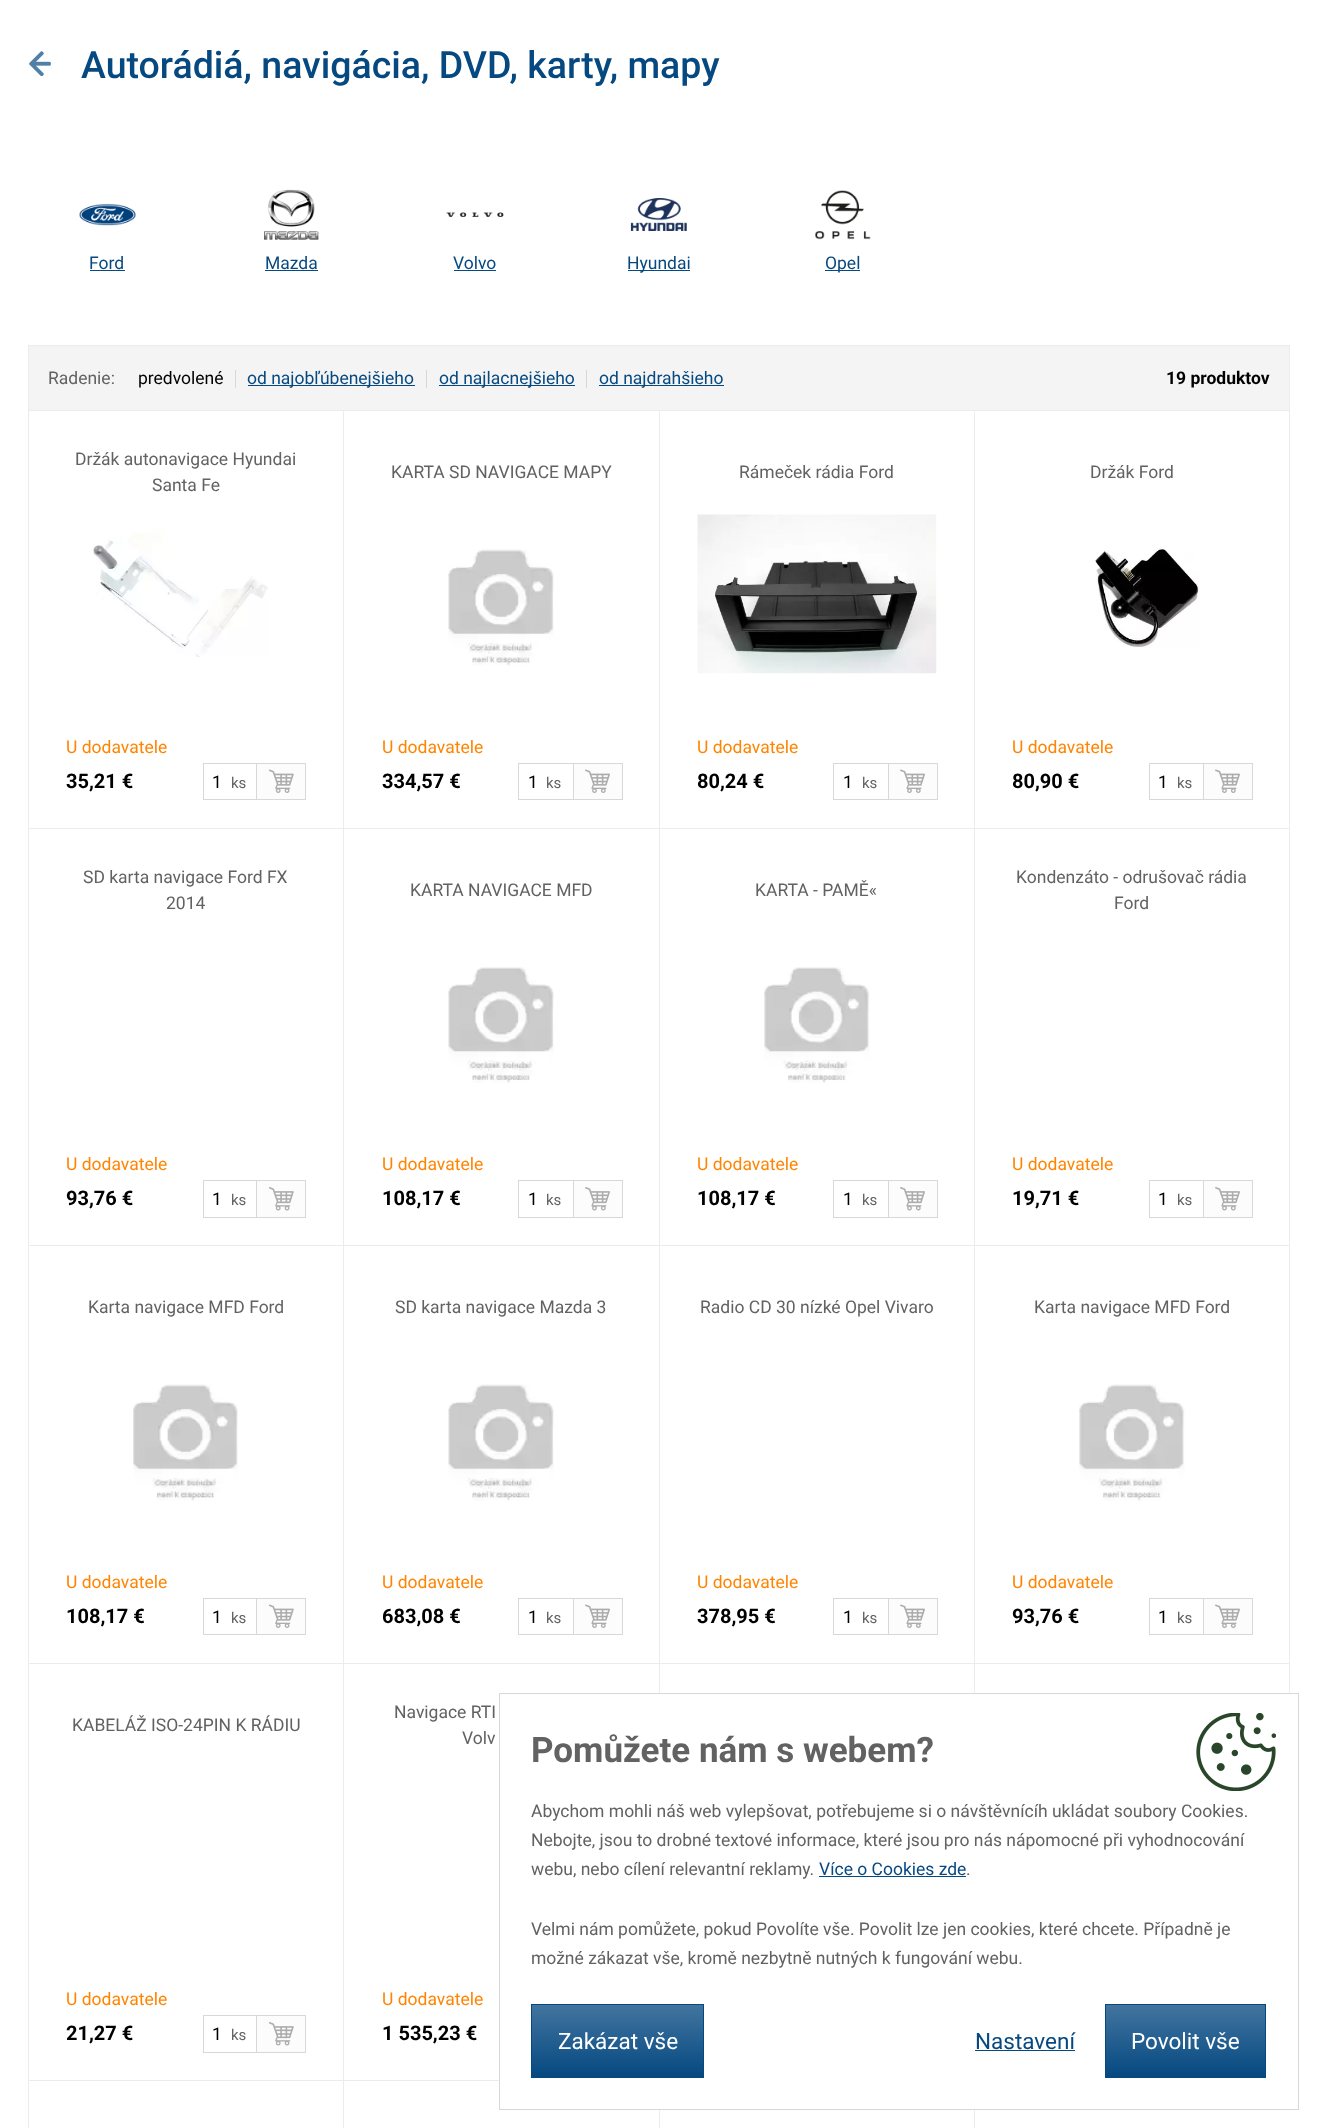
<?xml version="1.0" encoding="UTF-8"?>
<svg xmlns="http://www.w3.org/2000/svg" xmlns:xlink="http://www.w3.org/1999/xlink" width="1317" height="2128">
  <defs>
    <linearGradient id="g1" gradientUnits="userSpaceOnUse" x1="618" y1="2005" x2="618" y2="2076"><stop offset="0" stop-color="#42759f" /><stop offset="1" stop-color="#064981" /></linearGradient>
    <linearGradient id="g2" gradientUnits="userSpaceOnUse" x1="1186" y1="2005" x2="1186" y2="2076"><stop offset="0" stop-color="#42759f" /><stop offset="1" stop-color="#064981" /></linearGradient>
  </defs>
  <rect width="100%" height="100%" fill="#ffffff" />
  <image x="29" y="51" width="22" height="25" xlink:href="image1.png" />
  <image x="79" y="203" width="57" height="23" xlink:href="image2.png" />
  <rect x="90" y="270" width="35" height="1" fill="#064981" />
  <image x="264" y="189" width="55" height="51" xlink:href="image3.png" />
  <rect x="265" y="270" width="53" height="1" fill="#064981" />
  <image x="446" y="212" width="58" height="5" xlink:href="image4.png" />
  <rect x="454" y="270" width="42" height="1" fill="#064981" />
  <image x="630" y="198" width="57" height="33" xlink:href="image5.png" />
  <rect x="628" y="270" width="62" height="1" fill="#064981" />
  <image x="815" y="190" width="56" height="50" xlink:href="image6.png" />
  <rect x="825" y="270" width="35" height="1" fill="#064981" />
  <rect x="28.5" y="345.5" width="1261" height="65" fill="#f4f4f4" stroke="#ececec" />
  <rect x="235" y="370" width="1" height="18" fill="#d8d8d8" />
  <rect x="248" y="385" width="167" height="1" fill="#064981" />
  <rect x="426" y="370" width="1" height="18" fill="#d8d8d8" />
  <rect x="439" y="385" width="136" height="1" fill="#064981" />
  <rect x="586" y="370" width="1" height="18" fill="#d8d8d8" />
  <rect x="599" y="385" width="125" height="1" fill="#064981" />
  <rect x="28.5" y="410.5" width="315" height="418" fill="none" stroke="#ececec" />
  <image x="93" y="529" width="175" height="128" xlink:href="image7.png" />
  <rect x="203.5" y="763.5" width="55" height="36" fill="none" stroke="#d8d8d8" />
  <rect x="257" y="764" width="48" height="35" fill="#fbfcfb" />
  <image x="269" y="769" width="25" height="24" xlink:href="image8.png" />
  <rect x="256.5" y="763.5" width="49" height="36" fill="none" stroke="#d8d8d8" />
  <rect x="343.5" y="410.5" width="316" height="418" fill="none" stroke="#ececec" />
  <image x="448" y="549" width="106" height="117" xlink:href="image9.png" />
  <rect x="518.5" y="763.5" width="55" height="36" fill="none" stroke="#d8d8d8" />
  <rect x="574" y="764" width="48" height="35" fill="#fbfcfb" />
  <image x="585" y="769" width="25" height="24" xlink:href="image10.png" />
  <rect x="573.5" y="763.5" width="49" height="36" fill="none" stroke="#d8d8d8" />
  <rect x="659.5" y="410.5" width="315" height="418" fill="none" stroke="#ececec" />
  <image x="697" y="514" width="240" height="160" xlink:href="image11.png" />
  <rect x="833.5" y="763.5" width="55" height="36" fill="none" stroke="#d8d8d8" />
  <rect x="889" y="764" width="48" height="35" fill="#fbfcfb" />
  <image x="900" y="769" width="25" height="24" xlink:href="image10.png" />
  <rect x="888.5" y="763.5" width="49" height="36" fill="none" stroke="#d8d8d8" />
  <rect x="974.5" y="410.5" width="315" height="418" fill="none" stroke="#ececec" />
  <image x="1095" y="548" width="104" height="100" xlink:href="image12.png" />
  <rect x="1149.5" y="763.5" width="55" height="36" fill="none" stroke="#d8d8d8" />
  <rect x="1204" y="764" width="48" height="35" fill="#fbfcfb" />
  <image x="1215" y="769" width="25" height="24" xlink:href="image10.png" />
  <rect x="1203.5" y="763.5" width="49" height="36" fill="none" stroke="#d8d8d8" />
  <rect x="28.5" y="828.5" width="315" height="417" fill="none" stroke="#ececec" />
  <rect x="203.5" y="1180.5" width="55" height="37" fill="none" stroke="#d8d8d8" />
  <rect x="257" y="1181" width="48" height="36" fill="#fbfcfb" />
  <image x="269" y="1187" width="25" height="24" xlink:href="image13.png" />
  <rect x="256.5" y="1180.5" width="49" height="37" fill="none" stroke="#d8d8d8" />
  <rect x="343.5" y="828.5" width="316" height="417" fill="none" stroke="#ececec" />
  <image x="448" y="967" width="106" height="116" xlink:href="image14.png" />
  <rect x="518.5" y="1180.5" width="55" height="37" fill="none" stroke="#d8d8d8" />
  <rect x="574" y="1181" width="48" height="36" fill="#fbfcfb" />
  <image x="585" y="1187" width="25" height="24" xlink:href="image15.png" />
  <rect x="573.5" y="1180.5" width="49" height="37" fill="none" stroke="#d8d8d8" />
  <rect x="659.5" y="828.5" width="315" height="417" fill="none" stroke="#ececec" />
  <image x="764" y="967" width="106" height="116" xlink:href="image16.png" />
  <rect x="833.5" y="1180.5" width="55" height="37" fill="none" stroke="#d8d8d8" />
  <rect x="889" y="1181" width="48" height="36" fill="#fbfcfb" />
  <image x="900" y="1187" width="25" height="24" xlink:href="image15.png" />
  <rect x="888.5" y="1180.5" width="49" height="37" fill="none" stroke="#d8d8d8" />
  <rect x="974.5" y="828.5" width="315" height="417" fill="none" stroke="#ececec" />
  <rect x="1149.5" y="1180.5" width="55" height="37" fill="none" stroke="#d8d8d8" />
  <rect x="1204" y="1181" width="48" height="36" fill="#fbfcfb" />
  <image x="1215" y="1187" width="25" height="24" xlink:href="image15.png" />
  <rect x="1203.5" y="1180.5" width="49" height="37" fill="none" stroke="#d8d8d8" />
  <rect x="28.5" y="1245.5" width="315" height="418" fill="none" stroke="#ececec" />
  <image x="133" y="1384" width="105" height="117" xlink:href="image17.png" />
  <rect x="203.5" y="1598.5" width="55" height="36" fill="none" stroke="#d8d8d8" />
  <rect x="257" y="1599" width="48" height="35" fill="#fbfcfb" />
  <image x="269" y="1604" width="25" height="24" xlink:href="image8.png" />
  <rect x="256.5" y="1598.5" width="49" height="36" fill="none" stroke="#d8d8d8" />
  <rect x="343.5" y="1245.5" width="316" height="418" fill="none" stroke="#ececec" />
  <image x="448" y="1384" width="106" height="117" xlink:href="image9.png" />
  <rect x="518.5" y="1598.5" width="55" height="36" fill="none" stroke="#d8d8d8" />
  <rect x="574" y="1599" width="48" height="35" fill="#fbfcfb" />
  <image x="585" y="1604" width="25" height="24" xlink:href="image10.png" />
  <rect x="573.5" y="1598.5" width="49" height="36" fill="none" stroke="#d8d8d8" />
  <rect x="659.5" y="1245.5" width="315" height="418" fill="none" stroke="#ececec" />
  <rect x="833.5" y="1598.5" width="55" height="36" fill="none" stroke="#d8d8d8" />
  <rect x="889" y="1599" width="48" height="35" fill="#fbfcfb" />
  <image x="900" y="1604" width="25" height="24" xlink:href="image10.png" />
  <rect x="888.5" y="1598.5" width="49" height="36" fill="none" stroke="#d8d8d8" />
  <rect x="974.5" y="1245.5" width="315" height="418" fill="none" stroke="#ececec" />
  <image x="1079" y="1384" width="106" height="117" xlink:href="image18.png" />
  <rect x="1149.5" y="1598.5" width="55" height="36" fill="none" stroke="#d8d8d8" />
  <rect x="1204" y="1599" width="48" height="35" fill="#fbfcfb" />
  <image x="1215" y="1604" width="25" height="24" xlink:href="image10.png" />
  <rect x="1203.5" y="1598.5" width="49" height="36" fill="none" stroke="#d8d8d8" />
  <rect x="28.5" y="1663.5" width="315" height="417" fill="none" stroke="#ececec" />
  <rect x="203.5" y="2015.5" width="55" height="37" fill="none" stroke="#d8d8d8" />
  <rect x="257" y="2016" width="48" height="36" fill="#fbfcfb" />
  <image x="269" y="2022" width="25" height="24" xlink:href="image13.png" />
  <rect x="256.5" y="2015.5" width="49" height="37" fill="none" stroke="#d8d8d8" />
  <rect x="343.5" y="1663.5" width="316" height="417" fill="none" stroke="#ececec" />
  <rect x="659.5" y="1663.5" width="315" height="417" fill="none" stroke="#ececec" />
  <rect x="974.5" y="1663.5" width="315" height="417" fill="none" stroke="#ececec" />
  <rect x="28.5" y="2080.5" width="315" height="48" fill="none" stroke="#ececec" />
  <rect x="343.5" y="2080.5" width="316" height="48" fill="none" stroke="#ececec" />
  <rect x="659.5" y="2080.5" width="315" height="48" fill="none" stroke="#ececec" />
  <rect x="500" y="1694" width="790" height="415" fill="#ffffff" />
  <image x="1196" y="1713" width="80" height="78" xlink:href="image19.png" />
  <rect x="499.5" y="1693.5" width="799" height="416" fill="none" stroke="#d8d8d8" />
  <rect x="819" y="1876" width="147" height="1" fill="#064981" />
  <rect x="532" y="2076" width="171" height="1" fill="#064981" />
  <rect x="532" y="2005" width="171" height="71" fill="url(#g1)" />
  <rect x="531.5" y="2004.5" width="172" height="73" fill="none" stroke="#064981" />
  <rect x="975" y="2050" width="100" height="1" fill="#064981" />
  <rect x="1106" y="2076" width="159" height="1" fill="#064981" />
  <rect x="1106" y="2005" width="159" height="71" fill="url(#g2)" />
  <rect x="1105.5" y="2004.5" width="160" height="73" fill="none" stroke="#064981" />
  <text x="81" y="78" style="font-family: Roboto; font-size: 37.5px; font-weight: 500; fill: #064981">Autorádiá, navigácia, DVD, karty, mapy</text>
  <text x="89" y="269" style="font-family: Roboto; font-size: 17.5px; fill: #064981">Ford</text>
  <text x="265" y="269" style="font-family: Roboto; font-size: 17.5px; fill: #064981">Mazda</text>
  <text x="453" y="269" style="font-family: Roboto; font-size: 17.5px; fill: #064981">Volvo</text>
  <text x="627" y="269" style="font-family: Roboto; font-size: 17.5px; fill: #064981">Hyundai</text>
  <text x="825" y="269" style="font-family: Roboto; font-size: 17.5px; fill: #064981">Opel</text>
  <text x="48" y="384" style="font-family: Roboto; font-size: 17.5px; fill: #626262">Radenie:</text>
  <text x="138" y="384" style="font-family: Roboto; font-size: 17.5px; fill: #000000">predvolené</text>
  <text x="247" y="384" style="font-family: Roboto; font-size: 17.5px; fill: #064981">od najobľúbenejšieho</text>
  <text x="439" y="384" style="font-family: Roboto; font-size: 17.5px; fill: #064981">od najlacnejšieho</text>
  <text x="599" y="384" style="font-family: Roboto; font-size: 17.5px; fill: #064981">od najdrahšieho</text>
  <text x="1166" y="384" style="font-family: Roboto; font-size: 17.5px; font-weight: bold; fill: #000000">19 produktov</text>
  <text x="75" y="465" style="font-family: Roboto; font-size: 17.5px; fill: #626262">Držák autonavigace Hyundai</text>
  <text x="152" y="491" style="font-family: Roboto; font-size: 17.5px; fill: #626262">Santa Fe</text>
  <text x="66" y="753" style="font-family: Roboto; font-size: 17.5px; fill: #ff8400">U dodavatele</text>
  <text x="66" y="788" style="font-family: Roboto; font-size: 20px; font-weight: bold; fill: #000000">35,21 €</text>
  <text x="212" y="788" style="font-family: Roboto; font-size: 17.5px; fill: #000000">1</text>
  <text x="231" y="788" style="font-family: Roboto; font-size: 15px; fill: #626262">ks</text>
  <text x="391" y="478" style="font-family: Roboto; font-size: 17.5px; fill: #626262">KARTA SD NAVIGACE MAPY</text>
  <text x="382" y="753" style="font-family: Roboto; font-size: 17.5px; fill: #ff8400">U dodavatele</text>
  <text x="382" y="788" style="font-family: Roboto; font-size: 20px; font-weight: bold; fill: #000000">334,57 €</text>
  <text x="528" y="788" style="font-family: Roboto; font-size: 17.5px; fill: #000000">1</text>
  <text x="546" y="788" style="font-family: Roboto; font-size: 15px; fill: #626262">ks</text>
  <text x="739" y="478" style="font-family: Roboto; font-size: 17.5px; fill: #626262">Rámeček rádia Ford</text>
  <text x="697" y="753" style="font-family: Roboto; font-size: 17.5px; fill: #ff8400">U dodavatele</text>
  <text x="697" y="788" style="font-family: Roboto; font-size: 20px; font-weight: bold; fill: #000000">80,24 €</text>
  <text x="843" y="788" style="font-family: Roboto; font-size: 17.5px; fill: #000000">1</text>
  <text x="862" y="788" style="font-family: Roboto; font-size: 15px; fill: #626262">ks</text>
  <text x="1090" y="478" style="font-family: Roboto; font-size: 17.5px; fill: #626262">Držák Ford</text>
  <text x="1012" y="753" style="font-family: Roboto; font-size: 17.5px; fill: #ff8400">U dodavatele</text>
  <text x="1012" y="788" style="font-family: Roboto; font-size: 20px; font-weight: bold; fill: #000000">80,90 €</text>
  <text x="1158" y="788" style="font-family: Roboto; font-size: 17.5px; fill: #000000">1</text>
  <text x="1177" y="788" style="font-family: Roboto; font-size: 15px; fill: #626262">ks</text>
  <text x="83" y="883" style="font-family: Roboto; font-size: 17.5px; fill: #626262">SD karta navigace Ford FX</text>
  <text x="166" y="909" style="font-family: Roboto; font-size: 17.5px; fill: #626262">2014</text>
  <text x="66" y="1170" style="font-family: Roboto; font-size: 17.5px; fill: #ff8400">U dodavatele</text>
  <text x="66" y="1205" style="font-family: Roboto; font-size: 20px; font-weight: bold; fill: #000000">93,76 €</text>
  <text x="212" y="1205" style="font-family: Roboto; font-size: 17.5px; fill: #000000">1</text>
  <text x="231" y="1205" style="font-family: Roboto; font-size: 15px; fill: #626262">ks</text>
  <text x="410" y="896" style="font-family: Roboto; font-size: 17.5px; fill: #626262">KARTA NAVIGACE MFD</text>
  <text x="382" y="1170" style="font-family: Roboto; font-size: 17.5px; fill: #ff8400">U dodavatele</text>
  <text x="382" y="1205" style="font-family: Roboto; font-size: 20px; font-weight: bold; fill: #000000">108,17 €</text>
  <text x="528" y="1205" style="font-family: Roboto; font-size: 17.5px; fill: #000000">1</text>
  <text x="546" y="1205" style="font-family: Roboto; font-size: 15px; fill: #626262">ks</text>
  <text x="755" y="896" style="font-family: Roboto; font-size: 17.5px; fill: #626262">KARTA - PAMĚ«</text>
  <text x="697" y="1170" style="font-family: Roboto; font-size: 17.5px; fill: #ff8400">U dodavatele</text>
  <text x="697" y="1205" style="font-family: Roboto; font-size: 20px; font-weight: bold; fill: #000000">108,17 €</text>
  <text x="843" y="1205" style="font-family: Roboto; font-size: 17.5px; fill: #000000">1</text>
  <text x="862" y="1205" style="font-family: Roboto; font-size: 15px; fill: #626262">ks</text>
  <text x="1016" y="883" style="font-family: Roboto; font-size: 17.5px; fill: #626262">Kondenzáto - odrušovač rádia</text>
  <text x="1114" y="909" style="font-family: Roboto; font-size: 17.5px; fill: #626262">Ford</text>
  <text x="1012" y="1170" style="font-family: Roboto; font-size: 17.5px; fill: #ff8400">U dodavatele</text>
  <text x="1012" y="1205" style="font-family: Roboto; font-size: 20px; font-weight: bold; fill: #000000">19,71 €</text>
  <text x="1158" y="1205" style="font-family: Roboto; font-size: 17.5px; fill: #000000">1</text>
  <text x="1177" y="1205" style="font-family: Roboto; font-size: 15px; fill: #626262">ks</text>
  <text x="88" y="1313" style="font-family: Roboto; font-size: 17.5px; fill: #626262">Karta navigace MFD Ford</text>
  <text x="66" y="1588" style="font-family: Roboto; font-size: 17.5px; fill: #ff8400">U dodavatele</text>
  <text x="66" y="1623" style="font-family: Roboto; font-size: 20px; font-weight: bold; fill: #000000">108,17 €</text>
  <text x="212" y="1623" style="font-family: Roboto; font-size: 17.5px; fill: #000000">1</text>
  <text x="231" y="1623" style="font-family: Roboto; font-size: 15px; fill: #626262">ks</text>
  <text x="395" y="1313" style="font-family: Roboto; font-size: 17.5px; fill: #626262">SD karta navigace Mazda 3</text>
  <text x="382" y="1588" style="font-family: Roboto; font-size: 17.5px; fill: #ff8400">U dodavatele</text>
  <text x="382" y="1623" style="font-family: Roboto; font-size: 20px; font-weight: bold; fill: #000000">683,08 €</text>
  <text x="528" y="1623" style="font-family: Roboto; font-size: 17.5px; fill: #000000">1</text>
  <text x="546" y="1623" style="font-family: Roboto; font-size: 15px; fill: #626262">ks</text>
  <text x="700" y="1313" style="font-family: Roboto; font-size: 17.5px; fill: #626262">Radio CD 30 nízké Opel Vivaro</text>
  <text x="697" y="1588" style="font-family: Roboto; font-size: 17.5px; fill: #ff8400">U dodavatele</text>
  <text x="697" y="1623" style="font-family: Roboto; font-size: 20px; font-weight: bold; fill: #000000">378,95 €</text>
  <text x="843" y="1623" style="font-family: Roboto; font-size: 17.5px; fill: #000000">1</text>
  <text x="862" y="1623" style="font-family: Roboto; font-size: 15px; fill: #626262">ks</text>
  <text x="1034" y="1313" style="font-family: Roboto; font-size: 17.5px; fill: #626262">Karta navigace MFD Ford</text>
  <text x="1012" y="1588" style="font-family: Roboto; font-size: 17.5px; fill: #ff8400">U dodavatele</text>
  <text x="1012" y="1623" style="font-family: Roboto; font-size: 20px; font-weight: bold; fill: #000000">93,76 €</text>
  <text x="1158" y="1623" style="font-family: Roboto; font-size: 17.5px; fill: #000000">1</text>
  <text x="1177" y="1623" style="font-family: Roboto; font-size: 15px; fill: #626262">ks</text>
  <text x="72" y="1731" style="font-family: Roboto; font-size: 17.5px; fill: #626262">KABELÁŽ ISO-24PIN K RÁDIU</text>
  <text x="66" y="2005" style="font-family: Roboto; font-size: 17.5px; fill: #ff8400">U dodavatele</text>
  <text x="66" y="2040" style="font-family: Roboto; font-size: 20px; font-weight: bold; fill: #000000">21,27 €</text>
  <text x="212" y="2040" style="font-family: Roboto; font-size: 17.5px; fill: #000000">1</text>
  <text x="231" y="2040" style="font-family: Roboto; font-size: 15px; fill: #626262">ks</text>
  <text x="394" y="1718" style="font-family: Roboto; font-size: 17.5px; fill: #626262">Navigace RTI</text>
  <text x="462" y="1744" style="font-family: Roboto; font-size: 17.5px; fill: #626262">Volv</text>
  <text x="382" y="2005" style="font-family: Roboto; font-size: 17.5px; fill: #ff8400">U dodavatele</text>
  <text x="382" y="2040" style="font-family: Roboto; font-size: 20px; font-weight: bold; fill: #000000">1 535,23 €</text>
  <text x="531" y="1762" style="font-family: Roboto; font-size: 35px; font-weight: bold; fill: #626262">Pomůžete nám s webem?</text>
  <text x="531" y="1817" style="font-family: Roboto; font-size: 17.5px; fill: #626262">Abychom mohli náš web vylepšovat, potřebujeme si o návštěvnícíh ukládat soubory Cookies.</text>
  <text x="531" y="1846" style="font-family: Roboto; font-size: 17.5px; fill: #626262">Nebojte, jsou to drobné textové informace, které jsou pro nás nápomocné při vyhodnocování</text>
  <text x="531" y="1875" style="font-family: Roboto; font-size: 17.5px; fill: #626262">webu, nebo cílení relevantní reklamy.</text>
  <text x="819" y="1875" style="font-family: Roboto; font-size: 17.5px; fill: #064981">Více o Cookies zde</text>
  <text x="966" y="1875" style="font-family: Roboto; font-size: 17.5px; fill: #626262">.</text>
  <text x="531" y="1935" style="font-family: Roboto; font-size: 17.5px; fill: #626262">Velmi nám pomůžete, pokud Povolíte vše. Povolit lze jen cookies, které chcete. Případně je</text>
  <text x="531" y="1964" style="font-family: Roboto; font-size: 17.5px; fill: #626262">možné zákazat vše, kromě nezbytně nutných k fungování webu.</text>
  <text x="558" y="2049" style="font-family: Roboto; font-size: 22.5px; fill: #ffffff">Zakázat vše</text>
  <text x="975" y="2049" style="font-family: Roboto; font-size: 22.5px; fill: #064981">Nastavení</text>
  <text x="1131" y="2049" style="font-family: Roboto; font-size: 22.5px; fill: #ffffff">Povolit vše</text>
</svg>
